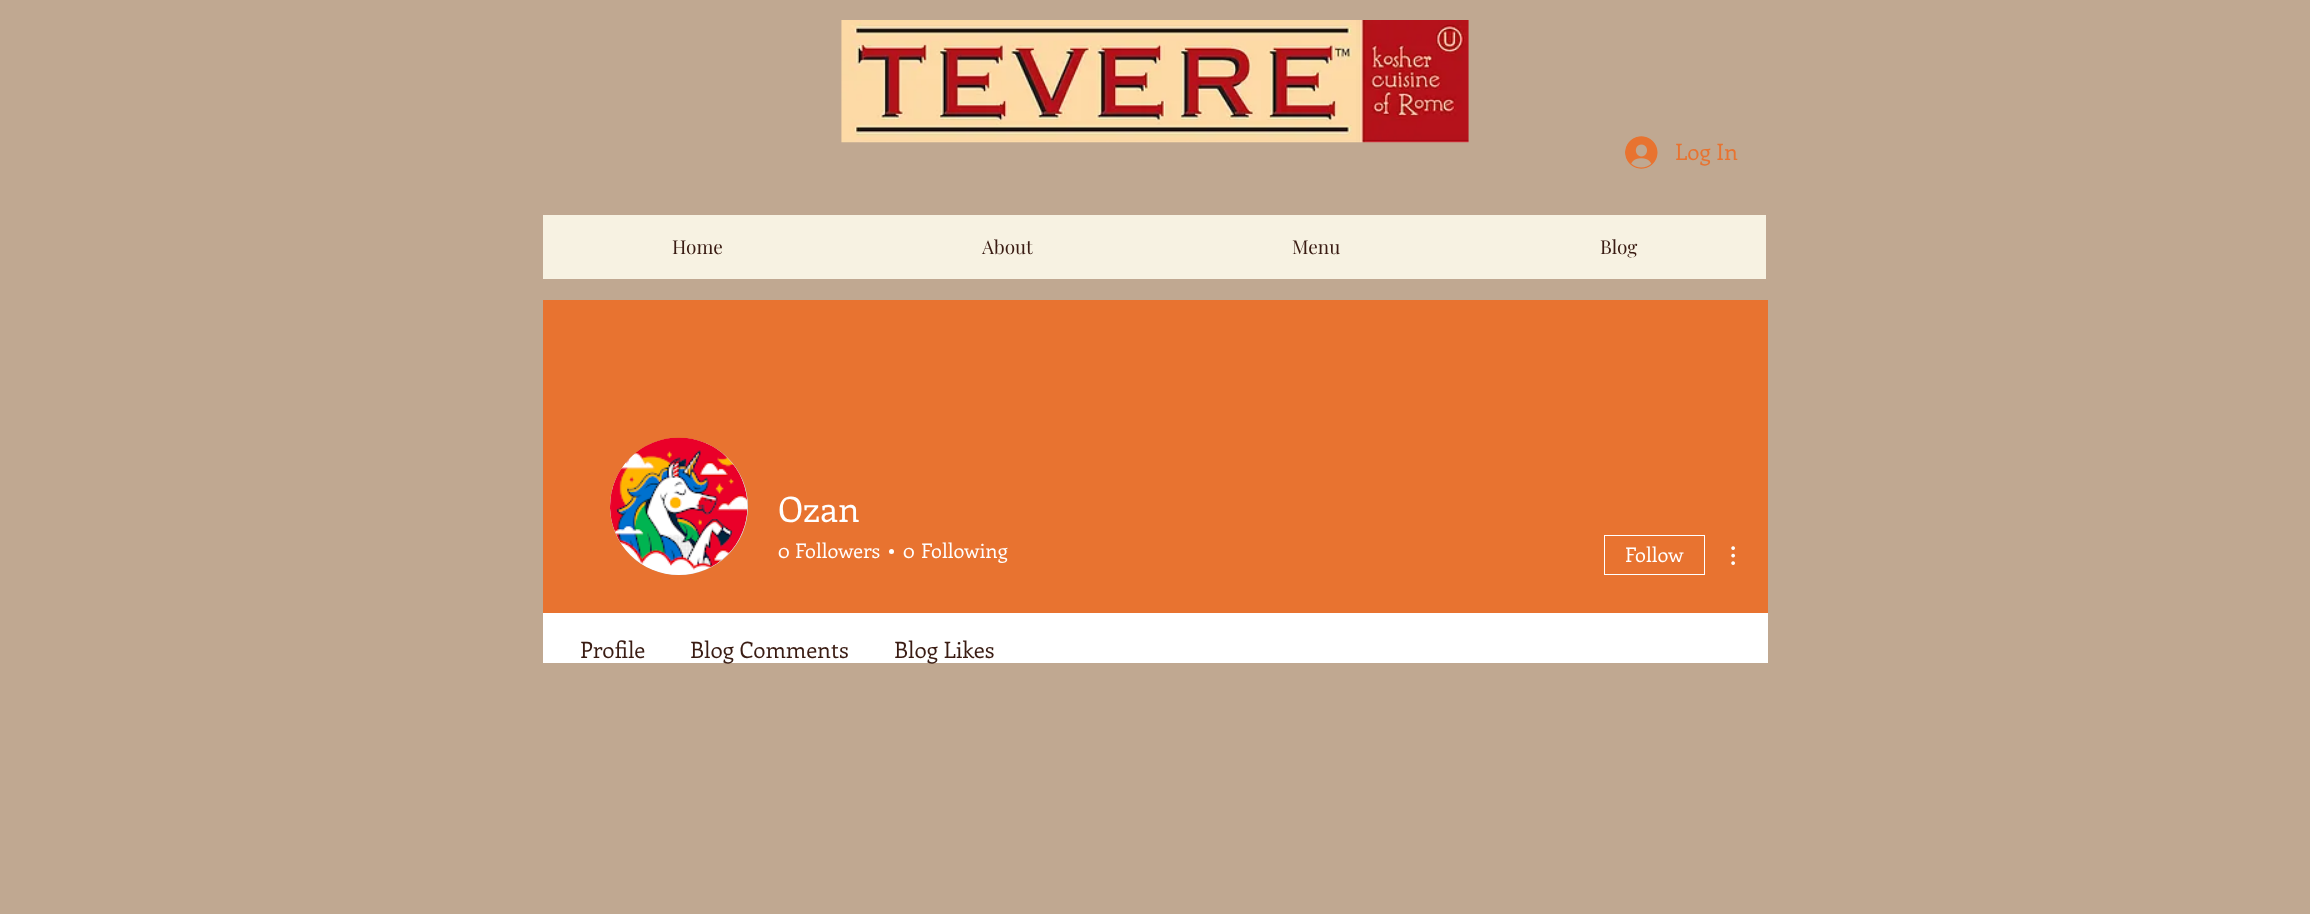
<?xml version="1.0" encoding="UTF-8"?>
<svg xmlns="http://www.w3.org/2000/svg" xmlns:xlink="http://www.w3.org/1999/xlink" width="2310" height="914">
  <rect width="100%" height="100%" fill="#c0a891" />
  <image x="841" y="20" width="628" height="123" xlink:href="image1.png" />
  <image x="1625" y="136" width="33" height="33" xlink:href="image2.png" />
  <rect x="543" y="215" width="1223" height="64" fill="#f7f2e2" />
  <rect x="543" y="300" width="1225" height="313" fill="#e87330" />
  <rect x="610" y="438" width="138" height="137" rx="68.5" fill="#d8d8d8" />
  <image x="610" y="437" width="138" height="138" xlink:href="image3.png" />
  <circle cx="891.5" cy="551.5" r="2.5" fill="#ffffff" />
  <rect x="1604.5" y="535.5" width="100" height="39" fill="none" stroke="#ffffff" />
  <image x="1731" y="546" width="4" height="19" xlink:href="image4.png" />
  <rect x="543" y="613" width="1225" height="50" fill="#ffffff" />
  <text x="1675" y="160" style="font-family: Enriqueta; font-size: 22.5px; fill: #e87330">Log In</text>
  <text x="672" y="254" style="font-family: Playfair Display; font-size: 19px; fill: #3a1c13">Home</text>
  <text x="982" y="254" style="font-family: Playfair Display; font-size: 19px; fill: #3a1c13">About</text>
  <text x="1292" y="254" style="font-family: Playfair Display; font-size: 19px; fill: #3a1c13">Menu</text>
  <text x="1600" y="254" style="font-family: Playfair Display; font-size: 19px; fill: #3a1c13">Blog</text>
  <text x="778" y="522" style="font-family: Enriqueta; font-size: 35px; fill: #ffffff">Ozan</text>
  <text x="778" y="558" style="font-family: Enriqueta; font-size: 20px; fill: #ffffff">0</text>
  <text x="795" y="558" style="font-family: Enriqueta; font-size: 20px; fill: #ffffff">Followers</text>
  <text x="903" y="558" style="font-family: Enriqueta; font-size: 20px; fill: #ffffff">0</text>
  <text x="921" y="558" style="font-family: Enriqueta; font-size: 20px; fill: #ffffff">Following</text>
  <text x="1625" y="562" style="font-family: Enriqueta; font-size: 20px; fill: #ffffff">Follow</text>
  <text x="580" y="658" style="font-family: Enriqueta; font-size: 22.5px; fill: #3a1c13">Profile</text>
  <text x="690" y="658" style="font-family: Enriqueta; font-size: 22.5px; fill: #3a1c13">Blog Comments</text>
  <text x="894" y="658" style="font-family: Enriqueta; font-size: 22.5px; fill: #3a1c13">Blog Likes</text>
</svg>
